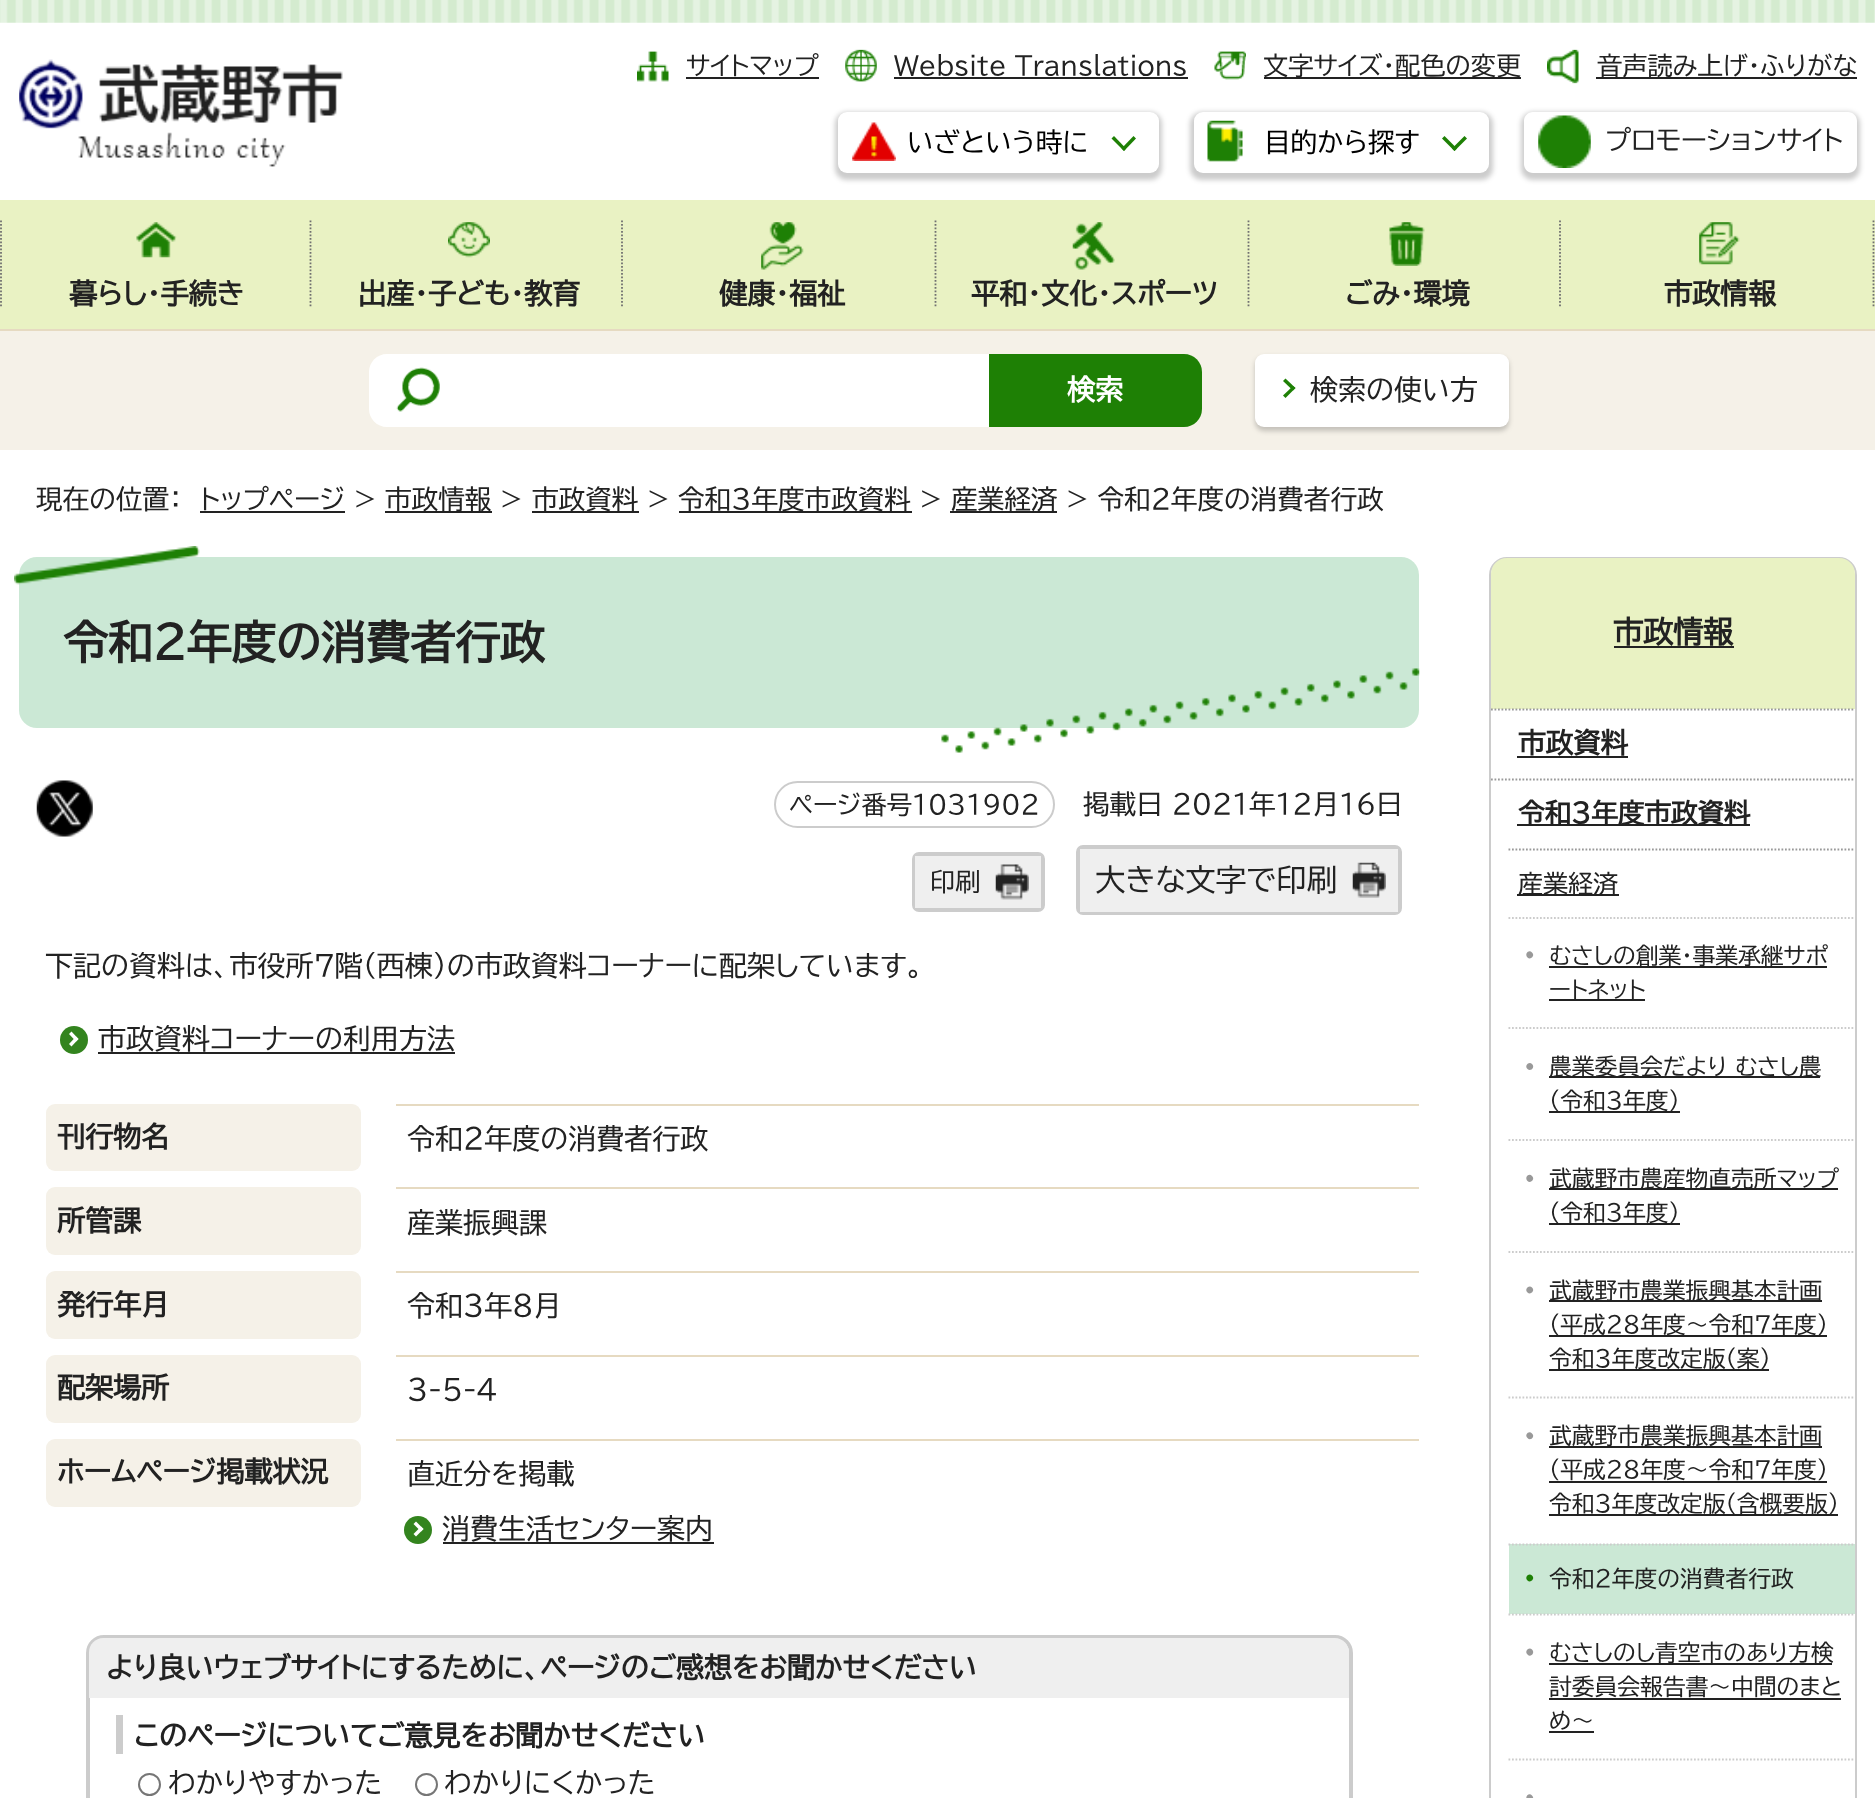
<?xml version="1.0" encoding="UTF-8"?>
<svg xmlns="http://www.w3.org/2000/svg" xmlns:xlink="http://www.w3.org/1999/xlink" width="1875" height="1798">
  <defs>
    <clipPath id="clip1"><path d="M 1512 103 h 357 v 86 h -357 z m 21 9 h 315 c 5 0 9 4 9 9 v 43 c 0 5 -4 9 -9 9 h -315 c -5 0 -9 -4 -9 -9 v -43 c 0 -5 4 -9 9 -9 z" clip-rule="evenodd" /></clipPath>
  </defs>
  <rect width="100%" height="100%" fill="#ffffff" />
  <image x="0" y="0" width="1875" height="23" xlink:href="image1.png" />
  <image x="19" y="59" width="324" height="108" xlink:href="image2.png" />
  <image x="637" y="51" width="32" height="31" xlink:href="image3.png" />
  <rect x="686" y="77" width="133" height="2" fill="#222222" />
  <image x="845" y="49" width="32" height="33" xlink:href="image4.png" />
  <rect x="894" y="77" width="294" height="2" fill="#222222" />
  <image x="1214" y="51" width="32" height="29" xlink:href="image5.png" />
  <rect x="1264" y="77" width="257" height="2" fill="#222222" />
  <image x="1547" y="49" width="32" height="35" xlink:href="image6.png" />
  <rect x="1596" y="77" width="261" height="2" fill="#222222" />
  <rect x="835" y="112" width="327" height="68" rx="12" fill="#000000" fill-opacity="0.2" filter="blur(2.5px)" />
  <rect x="838" y="112" width="321" height="61" rx="9" fill="#ffffff" />
  <image x="852" y="122" width="44" height="39" xlink:href="image7.png" />
  <path d="M 1136 138.5 l -12 12.5 l -2.5 -2.5 l 12 -12.5 z" fill="#1e8005" />
  <path d="M 1126 148.5 l -2 2.5 l -12.5 -12.5 l 2.5 -2.5 z" fill="#1e8005" />
  <rect x="1190" y="112" width="303" height="68" rx="12" fill="#000000" fill-opacity="0.2" filter="blur(2.5px)" />
  <rect x="1194" y="112" width="295" height="61" rx="9" fill="#ffffff" />
  <image x="1207" y="120" width="36" height="42" xlink:href="image8.png" />
  <path d="M 1467 138.5 l -12.5 12.5 l -2.5 -2.5 l 12.5 -12.5 z" fill="#1e8005" />
  <path d="M 1457 148.5 l -2.5 2.5 l -12.5 -12.5 l 2.5 -2.5 z" fill="#1e8005" />
  <g clip-path="url(#clip1)">
    <rect x="1521" y="112" width="339" height="68" rx="12" fill="#000000" fill-opacity="0.2" filter="blur(2.5px)" />
  </g>
  <image x="1538" y="115" width="53" height="53" xlink:href="image9.png" />
  <rect y="200" width="1875" height="129" fill="#e9f2c3" />
  <rect y="329" width="1875" height="2" fill="#e6dac1" />
  <image x="136" y="222" width="41" height="36" xlink:href="image10.png" />
  <path d="M 1 220.5 v 87.5" fill="none" stroke="#707070" stroke-width="1.8" stroke-dasharray="1.75 1.75" />
  <path d="M 310.5 220.5 v 87.5" fill="none" stroke="#707070" stroke-width="1.8" stroke-dasharray="1.75 1.75" />
  <image x="448" y="222" width="42" height="36" xlink:href="image11.png" />
  <path d="M 622 220.5 v 87.5" fill="none" stroke="#707070" stroke-width="1.8" stroke-dasharray="1.75 1.75" />
  <image x="761" y="222" width="43" height="48" xlink:href="image12.png" />
  <path d="M 935.5 220.5 v 87.5" fill="none" stroke="#707070" stroke-width="1.8" stroke-dasharray="1.75 1.75" />
  <image x="1072" y="222" width="43" height="48" xlink:href="image13.png" />
  <path d="M 1248.5 220.5 v 87.5" fill="none" stroke="#707070" stroke-width="1.8" stroke-dasharray="1.75 1.75" />
  <image x="1389" y="222" width="36" height="44" xlink:href="image14.png" />
  <path d="M 1560 220.5 v 87.5" fill="none" stroke="#707070" stroke-width="1.8" stroke-dasharray="1.75 1.75" />
  <image x="1699" y="222" width="41" height="43" xlink:href="image15.png" />
  <path d="M 1873.5 220.5 v 87.5" fill="none" stroke="#707070" stroke-width="1.8" stroke-dasharray="1.75 1.75" />
  <rect y="331" width="1875" height="119" fill="#f5f1e8" />
  <path d="M 387 354 h 602 v 73 h -602 c -10 0 -18 -8 -18 -18 v -37 c 0 -10 8 -18 18 -18 z" fill="#ffffff" />
  <image x="396" y="367" width="44" height="45" xlink:href="image16.png" />
  <path d="M 989 354 h 195 c 10 0 18 8 18 18 v 37 c 0 10 -8 18 -18 18 h -195 z" fill="#1e8005" />
  <rect x="1255" y="357" width="254" height="74" rx="9" fill="#000000" fill-opacity="0.2" filter="blur(2.5px)" />
  <rect x="1255" y="354" width="254" height="73" rx="9" fill="#ffffff" />
  <path d="M 1285.5 378.5 l 10 9.5 l -2.5 2.5 l -10 -9.5 z" fill="#1e8005" />
  <path d="M 1293 386 l 2.5 2 l -10 10 l -2.5 -2.5 z" fill="#1e8005" />
  <rect x="200" y="511" width="145" height="2" fill="#222222" />
  <rect x="385" y="511" width="107" height="2" fill="#222222" />
  <rect x="532" y="511" width="107" height="2" fill="#222222" />
  <rect x="679" y="511" width="233" height="2" fill="#222222" />
  <rect x="950" y="511" width="107" height="2" fill="#222222" />
  <rect x="19" y="557" width="1400" height="171" rx="18" fill="#cbe8d5" />
  <image x="14" y="546" width="186" height="39" xlink:href="image17.png" />
  <image x="941" y="668" width="479" height="85" xlink:href="image18.png" />
  <image x="36" y="780" width="57" height="57" xlink:href="image19.png" />
  <rect x="775" y="782" width="279" height="45" rx="22.5" fill="none" stroke="#cccccc" stroke-width="2" />
  <rect x="914" y="854" width="129" height="56" rx="5" fill="none" stroke="#cccccc" stroke-width="4" />
  <rect x="915" y="856" width="126" height="52" fill="#efefef" />
  <image x="995" y="864" width="34" height="36" xlink:href="image20.png" />
  <rect x="1078" y="847" width="322" height="66" rx="5" fill="none" stroke="#cccccc" stroke-width="4" />
  <rect x="1080" y="849" width="318" height="63" fill="#efefef" />
  <image x="1352" y="862" width="34" height="36" xlink:href="image21.png" />
  <circle cx="74" cy="1040" r="14" fill="#33841e" />
  <rect x="98" y="1052" width="357" height="2" fill="#222222" />
  <path d="M 71.5 1031.5 l 7 7.5 l -2.5 2.5 l -7 -7.5 z" fill="#ffffff" />
  <path d="M 76 1036.5 l 2.5 2.5 l -7 7.5 l -2.5 -2.5 z" fill="#ffffff" />
  <rect x="46" y="1104" width="315" height="67" rx="9" fill="#f5f1e8" />
  <rect x="396" y="1104" width="1023" height="2" fill="#e6dac1" />
  <rect x="46" y="1187" width="315" height="68" rx="9" fill="#f5f1e8" />
  <rect x="396" y="1187" width="1023" height="2" fill="#e6dac1" />
  <rect x="46" y="1271" width="315" height="68" rx="9" fill="#f5f1e8" />
  <rect x="396" y="1271" width="1023" height="2" fill="#e6dac1" />
  <rect x="46" y="1355" width="315" height="68" rx="9" fill="#f5f1e8" />
  <rect x="396" y="1355" width="1023" height="2" fill="#e6dac1" />
  <rect x="46" y="1439" width="315" height="68" rx="9" fill="#f5f1e8" />
  <rect x="396" y="1439" width="1023" height="2" fill="#e6dac1" />
  <circle cx="418" cy="1530" r="14" fill="#33841e" />
  <rect x="443" y="1542" width="271" height="2" fill="#222222" />
  <path d="M 416 1521.5 l 7.5 7.5 l -2.5 2.5 l -7.5 -7.5 z" fill="#ffffff" />
  <path d="M 421 1526.5 l 2.5 2.5 l -7.5 7.5 l -2.5 -2.5 z" fill="#ffffff" />
  <rect x="88" y="1637" width="1263" height="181" rx="16" fill="none" stroke="#cccccc" stroke-width="4" />
  <path d="M 103 1638 h 1232 c 7.5 0 14 6.5 14 14 v 46 h -1260 v -46 c 0 -7.5 6.5 -14 14 -14 z" fill="#efefef" />
  <rect x="116" y="1715" width="7" height="39" fill="#cccccc" />
  <circle cx="149.5" cy="1784.5" r="10.5" fill="none" stroke="#767676" stroke-width="2" />
  <circle cx="426.5" cy="1784.5" r="10.5" fill="none" stroke="#767676" stroke-width="2" />
  <rect x="1490" y="558" width="366" height="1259" rx="17" fill="none" stroke="#cccccc" stroke-width="2" />
  <path d="M 1507 558 h 332 c 9 0 16 7 16 16 v 135 h -364 v -135 c 0 -9 7 -16 16 -16 z" fill="#e9f2c3" />
  <rect x="1614" y="646" width="120" height="2" fill="#222222" />
  <path d="M 1491 709.5 h 364" fill="none" stroke="#999999" stroke-width="1.8" stroke-dasharray="1.75 1.75" />
  <rect x="1517" y="756" width="111" height="2" fill="#222222" />
  <path d="M 1491 779.5 h 364" fill="none" stroke="#999999" stroke-width="1.8" stroke-dasharray="1.75 1.75" />
  <rect x="1517" y="824" width="233" height="2" fill="#222222" />
  <path d="M 1508.5 849.5 h 346.5" fill="none" stroke="#999999" stroke-width="1.8" stroke-dasharray="1.75 1.75" />
  <rect x="1517" y="894" width="102" height="2" fill="#222222" />
  <path d="M 1508.5 918 h 346.5" fill="none" stroke="#cccccc" stroke-width="1.8" stroke-dasharray="1.75 1.75" />
  <path d="M 1532 952.5 c 3.5 3 -1.5 8 -4.5 5 c -3.5 -3.5 1.5 -8.5 4.5 -5 z" fill="#999999" />
  <rect x="1549" y="966" width="278" height="2" fill="#222222" />
  <rect x="1549" y="999" width="96" height="2" fill="#222222" />
  <path d="M 1508.5 1028 h 346.5" fill="none" stroke="#cccccc" stroke-width="1.8" stroke-dasharray="1.75 1.75" />
  <path d="M 1532 1064 c 3.5 3.5 -1.5 8 -4.5 5 c -3.5 -3 1.5 -8 4.5 -5 z" fill="#999999" />
  <rect x="1549" y="1076" width="271" height="2" fill="#222222" />
  <rect x="1549" y="1111" width="131" height="2" fill="#222222" />
  <path d="M 1508.5 1140 h 346.5" fill="none" stroke="#cccccc" stroke-width="1.8" stroke-dasharray="1.75 1.75" />
  <path d="M 1532 1176 c 3.5 3 -1.5 8 -4.5 5 c -3.5 -3.5 1.5 -8.5 4.5 -5 z" fill="#999999" />
  <rect x="1549" y="1188" width="289" height="2" fill="#222222" />
  <rect x="1549" y="1223" width="131" height="2" fill="#222222" />
  <path d="M 1508.5 1252 h 346.5" fill="none" stroke="#cccccc" stroke-width="1.8" stroke-dasharray="1.75 1.75" />
  <path d="M 1532 1287.5 c 3.5 3 -1.5 8 -4.5 5 c -3.5 -3 1.5 -8 4.5 -5 z" fill="#999999" />
  <rect x="1549" y="1300" width="273" height="2" fill="#222222" />
  <rect x="1549" y="1335" width="278" height="2" fill="#222222" />
  <rect x="1549" y="1369" width="220" height="2" fill="#222222" />
  <path d="M 1508.5 1397.5 h 346.5" fill="none" stroke="#cccccc" stroke-width="1.8" stroke-dasharray="1.75 1.75" />
  <path d="M 1532 1433.5 c 3.5 3 -1.5 8 -4.5 4.5 c -3.5 -3 1.5 -8 4.5 -4.5 z" fill="#999999" />
  <rect x="1549" y="1446" width="273" height="2" fill="#222222" />
  <rect x="1549" y="1481" width="278" height="2" fill="#222222" />
  <rect x="1549" y="1514" width="289" height="2" fill="#222222" />
  <rect x="1509" y="1544" width="346" height="70" fill="#cbe8d5" />
  <path d="M 1508.5 1544.5 h 346.5" fill="none" stroke="#cccccc" stroke-width="1.8" stroke-dasharray="1.75 1.75" />
  <path d="M 1532 1575.5 c 3.5 3 -1.5 8 -4.5 5 c -3.5 -3.5 1.5 -8 4.5 -5 z" fill="#1e8005" />
  <path d="M 1508.5 1614.5 h 346.5" fill="none" stroke="#cccccc" stroke-width="1.8" stroke-dasharray="1.75 1.75" />
  <path d="M 1532 1649.5 c 3.5 3.5 -1.5 8.5 -4.5 5 c -3.5 -3 1.5 -8 4.5 -5 z" fill="#999999" />
  <rect x="1549" y="1663" width="283" height="2" fill="#222222" />
  <rect x="1549" y="1698" width="292" height="2" fill="#222222" />
  <rect x="1549" y="1731" width="45" height="2" fill="#222222" />
  <path d="M 1508.5 1759.5 h 346.5" fill="none" stroke="#cccccc" stroke-width="1.8" stroke-dasharray="1.75 1.75" />
  <path d="M 1532 1795.5 c 3.5 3 -1.5 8 -4.5 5 c -3.5 -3.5 1.5 -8.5 4.5 -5 z" fill="#999999" />
  <text x="686" y="75" style="font-family: BIZ UDPGothic; font-size: 25.25px; fill: #222222">サイトマップ</text>
  <text x="894" y="75" style="font-family: BIZ UDPGothic; font-size: 25.25px; fill: #222222">Website Translations</text>
  <text x="1263" y="75" style="font-family: BIZ UDPGothic; font-size: 25.25px; fill: #222222">文字サイズ・配色の変更</text>
  <text x="1597" y="75" style="font-family: BIZ UDPGothic; font-size: 25.25px; fill: #222222">音声読み上げ・ふりがな</text>
  <text x="907" y="152" style="font-family: BIZ UDPGothic; font-size: 26.6px; fill: #000000">いざという時に</text>
  <text x="1264" y="152" style="font-family: BIZ UDPGothic; font-size: 26.6px; fill: #000000">目的から探す</text>
  <text x="1605" y="150" style="font-family: BIZ UDPGothic; font-size: 26.6px; fill: #222222">プロモーションサイト</text>
  <text x="69" y="304" style="font-family: BIZ UDPGothic; font-size: 28px; font-weight: bold; fill: #222222">暮らし・手続き</text>
  <text x="358" y="304" style="font-family: BIZ UDPGothic; font-size: 28px; font-weight: bold; fill: #222222">出産・子ども・教育</text>
  <text x="719" y="304" style="font-family: BIZ UDPGothic; font-size: 28px; font-weight: bold; fill: #222222">健康・福祉</text>
  <text x="971" y="304" style="font-family: BIZ UDPGothic; font-size: 28px; font-weight: bold; fill: #222222">平和・文化・スポーツ</text>
  <text x="1345" y="304" style="font-family: BIZ UDPGothic; font-size: 28px; font-weight: bold; fill: #222222">ごみ・環境</text>
  <text x="1664" y="304" style="font-family: BIZ UDPGothic; font-size: 28px; font-weight: bold; fill: #222222">市政情報</text>
  <text x="1067" y="400" style="font-family: BIZ UDPGothic; font-size: 28px; font-weight: bold; fill: #ffffff">検索</text>
  <text x="1310" y="400" style="font-family: BIZ UDPGothic; font-size: 28px; fill: #222222">検索の使い方</text>
  <text x="36" y="509" style="font-family: BIZ UDPGothic; font-size: 26.6px; fill: #222222">現在の位置：</text>
  <text x="200" y="509" style="font-family: BIZ UDPGothic; font-size: 26.6px; fill: #222222">トップページ &gt;</text>
  <text x="385" y="509" style="font-family: BIZ UDPGothic; font-size: 26.6px; fill: #222222">市政情報 &gt;</text>
  <text x="532" y="509" style="font-family: BIZ UDPGothic; font-size: 26.6px; fill: #222222">市政資料 &gt;</text>
  <text x="678" y="509" style="font-family: BIZ UDPGothic; font-size: 26.6px; fill: #222222">令和3年度市政資料 &gt;</text>
  <text x="951" y="509" style="font-family: BIZ UDPGothic; font-size: 26.6px; fill: #222222">産業経済 &gt; 令和2年度の消費者行政</text>
  <text x="63" y="659" style="font-family: BIZ UDPGothic; font-size: 44.75px; font-weight: bold; fill: #222222">令和2年度の消費者行政</text>
  <text x="789" y="814" style="font-family: BIZ UDPGothic; font-size: 25.25px; fill: #222222">ページ番号1031902</text>
  <text x="1083" y="814" style="font-family: BIZ UDPGothic; font-size: 26.6px; fill: #222222">掲載日 2021年12月16日</text>
  <text x="930" y="891" style="font-family: BIZ UDPGothic; font-size: 25.25px; fill: #222222">印刷</text>
  <text x="1095" y="891" style="font-family: BIZ UDPGothic; font-size: 30.5px; fill: #222222">大きな文字で印刷</text>
  <text x="45" y="976" style="font-family: BIZ UDPGothic; font-size: 28px; fill: #222222">下記の資料は、市役所7階（西棟）の市政資料コーナーに配架しています。</text>
  <text x="98" y="1049" style="font-family: BIZ UDPGothic; font-size: 28px; fill: #222222">市政資料コーナーの利用方法</text>
  <text x="57" y="1147" style="font-family: BIZ UDPGothic; font-size: 28px; font-weight: bold; fill: #222222">刊行物名</text>
  <text x="407" y="1149" style="font-family: BIZ UDPGothic; font-size: 28px; fill: #222222">令和2年度の消費者行政</text>
  <text x="57" y="1231" style="font-family: BIZ UDPGothic; font-size: 28px; font-weight: bold; fill: #222222">所管課</text>
  <text x="407" y="1233" style="font-family: BIZ UDPGothic; font-size: 28px; fill: #222222">産業振興課</text>
  <text x="57" y="1315" style="font-family: BIZ UDPGothic; font-size: 28px; font-weight: bold; fill: #222222">発行年月</text>
  <text x="407" y="1316" style="font-family: BIZ UDPGothic; font-size: 28px; fill: #222222">令和3年8月</text>
  <text x="57" y="1398" style="font-family: BIZ UDPGothic; font-size: 28px; font-weight: bold; fill: #222222">配架場所</text>
  <text x="407" y="1400" style="font-family: BIZ UDPGothic; font-size: 28px; fill: #222222">3-5-4</text>
  <text x="57" y="1482" style="font-family: BIZ UDPGothic; font-size: 28px; font-weight: bold; fill: #222222">ホームページ掲載状況</text>
  <text x="407" y="1484" style="font-family: BIZ UDPGothic; font-size: 28px; fill: #222222">直近分を掲載</text>
  <text x="442" y="1539" style="font-family: BIZ UDPGothic; font-size: 28px; fill: #222222">消費生活センター案内</text>
  <text x="106" y="1678" style="font-family: BIZ UDPGothic; font-size: 28px; font-weight: bold; fill: #222222">より良いウェブサイトにするために、ページのご感想をお聞かせください</text>
  <text x="134" y="1746" style="font-family: BIZ UDPGothic; font-size: 28px; font-weight: bold; fill: #222222">このページについてご意見をお聞かせください</text>
  <text x="168" y="1793" style="font-family: BIZ UDPGothic; font-size: 28px; fill: #222222">わかりやすかった</text>
  <text x="444" y="1793" style="font-family: BIZ UDPGothic; font-size: 28px; fill: #222222">わかりにくかった</text>
  <text x="1613" y="643" style="font-family: BIZ UDPGothic; font-size: 30px; font-weight: bold; fill: #222222">市政情報</text>
  <text x="1518" y="753" style="font-family: BIZ UDPGothic; font-size: 27.5px; font-weight: bold; fill: #222222">市政資料</text>
  <text x="1518" y="823" style="font-family: BIZ UDPGothic; font-size: 26.5px; font-weight: bold; fill: #222222">令和3年度市政資料</text>
  <text x="1518" y="893" style="font-family: BIZ UDPGothic; font-size: 25px; fill: #222222">産業経済</text>
  <text x="1549" y="964" style="font-family: BIZ UDPGothic; font-size: 22.75px; fill: #222222">むさしの創業・事業承継サポ</text>
  <text x="1549" y="998" style="font-family: BIZ UDPGothic; font-size: 22.75px; fill: #222222">ートネット</text>
  <text x="1549" y="1075" style="font-family: BIZ UDPGothic; font-size: 22.75px; fill: #222222">農業委員会だより むさし農</text>
  <text x="1549" y="1109" style="font-family: BIZ UDPGothic; font-size: 22.75px; fill: #222222">(令和3年度)</text>
  <text x="1549" y="1187" style="font-family: BIZ UDPGothic; font-size: 22.75px; fill: #222222">武蔵野市農産物直売所マップ</text>
  <text x="1549" y="1221" style="font-family: BIZ UDPGothic; font-size: 22.75px; fill: #222222">(令和3年度)</text>
  <text x="1549" y="1299" style="font-family: BIZ UDPGothic; font-size: 22.75px; fill: #222222">武蔵野市農業振興基本計画</text>
  <text x="1549" y="1333" style="font-family: BIZ UDPGothic; font-size: 22.75px; fill: #222222">(平成28年度～令和7年度)</text>
  <text x="1549" y="1367" style="font-family: BIZ UDPGothic; font-size: 22.75px; fill: #222222">令和3年度改定版(案)</text>
  <text x="1549" y="1444" style="font-family: BIZ UDPGothic; font-size: 22.75px; fill: #222222">武蔵野市農業振興基本計画</text>
  <text x="1549" y="1478" style="font-family: BIZ UDPGothic; font-size: 22.75px; fill: #222222">(平成28年度～令和7年度)</text>
  <text x="1549" y="1512" style="font-family: BIZ UDPGothic; font-size: 22.75px; fill: #222222">令和3年度改定版(含概要版)</text>
  <text x="1549" y="1587" style="font-family: BIZ UDPGothic; font-size: 22.75px; fill: #222222">令和2年度の消費者行政</text>
  <text x="1549" y="1661" style="font-family: BIZ UDPGothic; font-size: 22.75px; fill: #222222">むさしのし青空市のあり方検</text>
  <text x="1549" y="1695" style="font-family: BIZ UDPGothic; font-size: 22.75px; fill: #222222">討委員会報告書～中間のまと</text>
  <text x="1549" y="1729" style="font-family: BIZ UDPGothic; font-size: 22.75px; fill: #222222">め～</text>
</svg>
